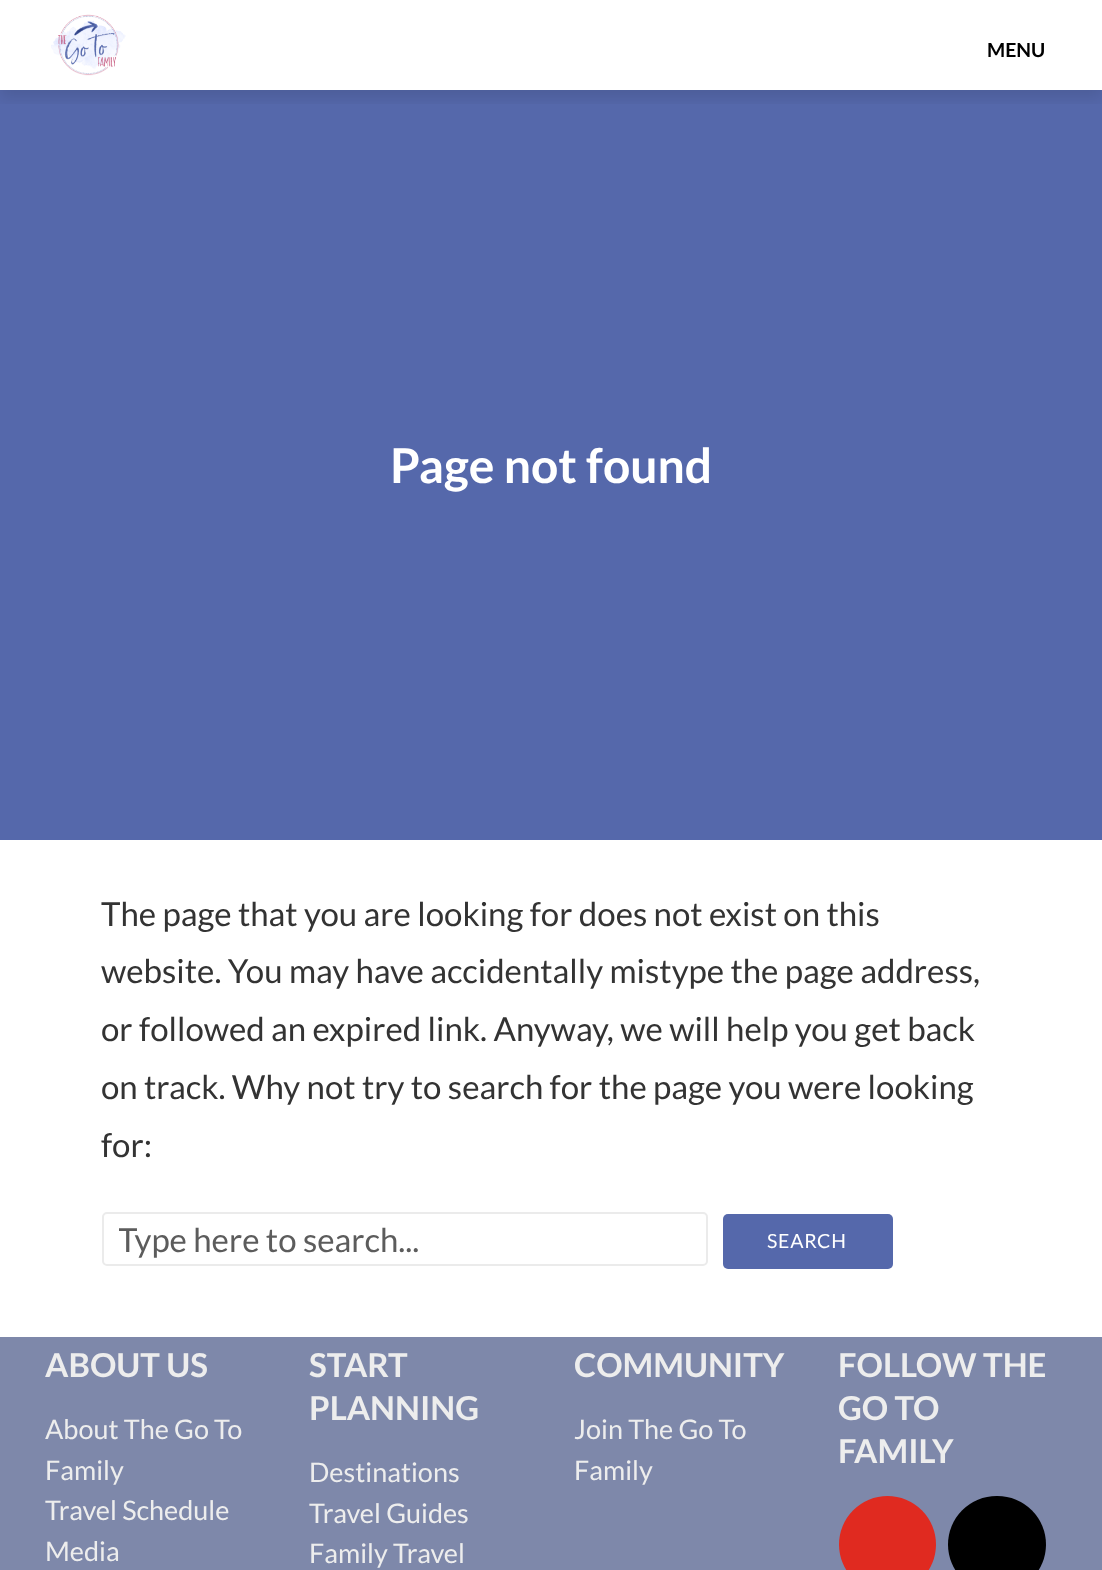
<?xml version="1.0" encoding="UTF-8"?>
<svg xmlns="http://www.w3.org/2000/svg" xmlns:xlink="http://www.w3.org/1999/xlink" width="1102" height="1570">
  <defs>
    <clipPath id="clip1"><rect x="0" y="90" width="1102" height="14" /></clipPath>
    <clipPath id="clip2"><rect x="119" y="1220" width="573" height="40" /></clipPath>
  </defs>
  <rect width="100%" height="100%" fill="#ffffff" />
  <rect y="90" width="1102" height="750" fill="#5568ab" />
  <g clip-path="url(#clip1)">
    <rect y="8" width="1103" height="90" fill="#000000" fill-opacity="0.1" filter="blur(7.5px)" />
  </g>
  <image x="51" y="14" width="75" height="62" xlink:href="image1.png" />
  <rect x="103" y="1213" width="604" height="52" rx="4" fill="none" stroke="#ebebeb" stroke-width="2" />
  <rect x="723" y="1214" width="170" height="55" rx="5" fill="#5568ab" />
  <rect y="1337" width="1102" height="233" fill="#7e88aa" />
  <circle cx="887.5" cy="1544.5" r="48.5" fill="#e02a20" />
  <rect x="948" y="1496" width="98" height="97" rx="48.5" fill="#000000" />
  <text x="987" y="57" style="font-family: Lato; font-size: 19.5px; font-weight: bold; fill: #000000">MENU</text>
  <text x="390" y="483" style="font-family: Lato; font-size: 48px; font-weight: bold; fill: #ffffff">Page not found</text>
  <text x="101" y="926" style="font-family: Lato; font-size: 33px; fill: #333333">The page that you are looking for does not exist on this</text>
  <text x="101" y="983" style="font-family: Lato; font-size: 33px; fill: #333333">website. You may have accidentally mistype the page address,</text>
  <text x="101" y="1041" style="font-family: Lato; font-size: 33px; fill: #333333">or followed an expired link. Anyway, we will help you get back</text>
  <text x="101" y="1099" style="font-family: Lato; font-size: 33px; fill: #333333">on track. Why not try to search for the page you were looking</text>
  <text x="101" y="1157" style="font-family: Lato; font-size: 33px; fill: #333333">for:</text>
  <g clip-path="url(#clip2)">
    <text x="118" y="1252" style="font-family: Lato; font-size: 33px; fill: #5c5c5c">Type here to search...</text>
  </g>
  <text x="767" y="1248" style="font-family: Lato; font-size: 19.5px; letter-spacing: 0.75px; fill: #ffffff">SEARCH</text>
  <text x="45" y="1377" style="font-family: Lato; font-size: 33px; font-weight: bold; fill: #ededed">ABOUT US</text>
  <text x="45" y="1439" style="font-family: Lato; font-size: 27px; fill: #ededed">About The Go To</text>
  <text x="45" y="1480" style="font-family: Lato; font-size: 27px; fill: #ededed">Family</text>
  <text x="45" y="1520" style="font-family: Lato; font-size: 27px; fill: #ededed">Travel Schedule</text>
  <text x="45" y="1561" style="font-family: Lato; font-size: 27px; fill: #ededed">Media</text>
  <text x="309" y="1377" style="font-family: Lato; font-size: 33px; font-weight: bold; fill: #ededed">START</text>
  <text x="309" y="1420" style="font-family: Lato; font-size: 33px; font-weight: bold; fill: #ededed">PLANNING</text>
  <text x="309" y="1482" style="font-family: Lato; font-size: 27px; fill: #ededed">Destinations</text>
  <text x="309" y="1523" style="font-family: Lato; font-size: 27px; fill: #ededed">Travel Guides</text>
  <text x="309" y="1563" style="font-family: Lato; font-size: 27px; fill: #ededed">Family Travel</text>
  <text x="574" y="1377" style="font-family: Lato; font-size: 33px; font-weight: bold; fill: #ededed">COMMUNITY</text>
  <text x="574" y="1439" style="font-family: Lato; font-size: 27px; fill: #ededed">Join The Go To</text>
  <text x="574" y="1480" style="font-family: Lato; font-size: 27px; fill: #ededed">Family</text>
  <text x="838" y="1377" style="font-family: Lato; font-size: 33px; font-weight: bold; fill: #ededed">FOLLOW THE</text>
  <text x="838" y="1420" style="font-family: Lato; font-size: 33px; font-weight: bold; fill: #ededed">GO TO</text>
  <text x="838" y="1463" style="font-family: Lato; font-size: 33px; font-weight: bold; fill: #ededed">FAMILY</text>
</svg>
